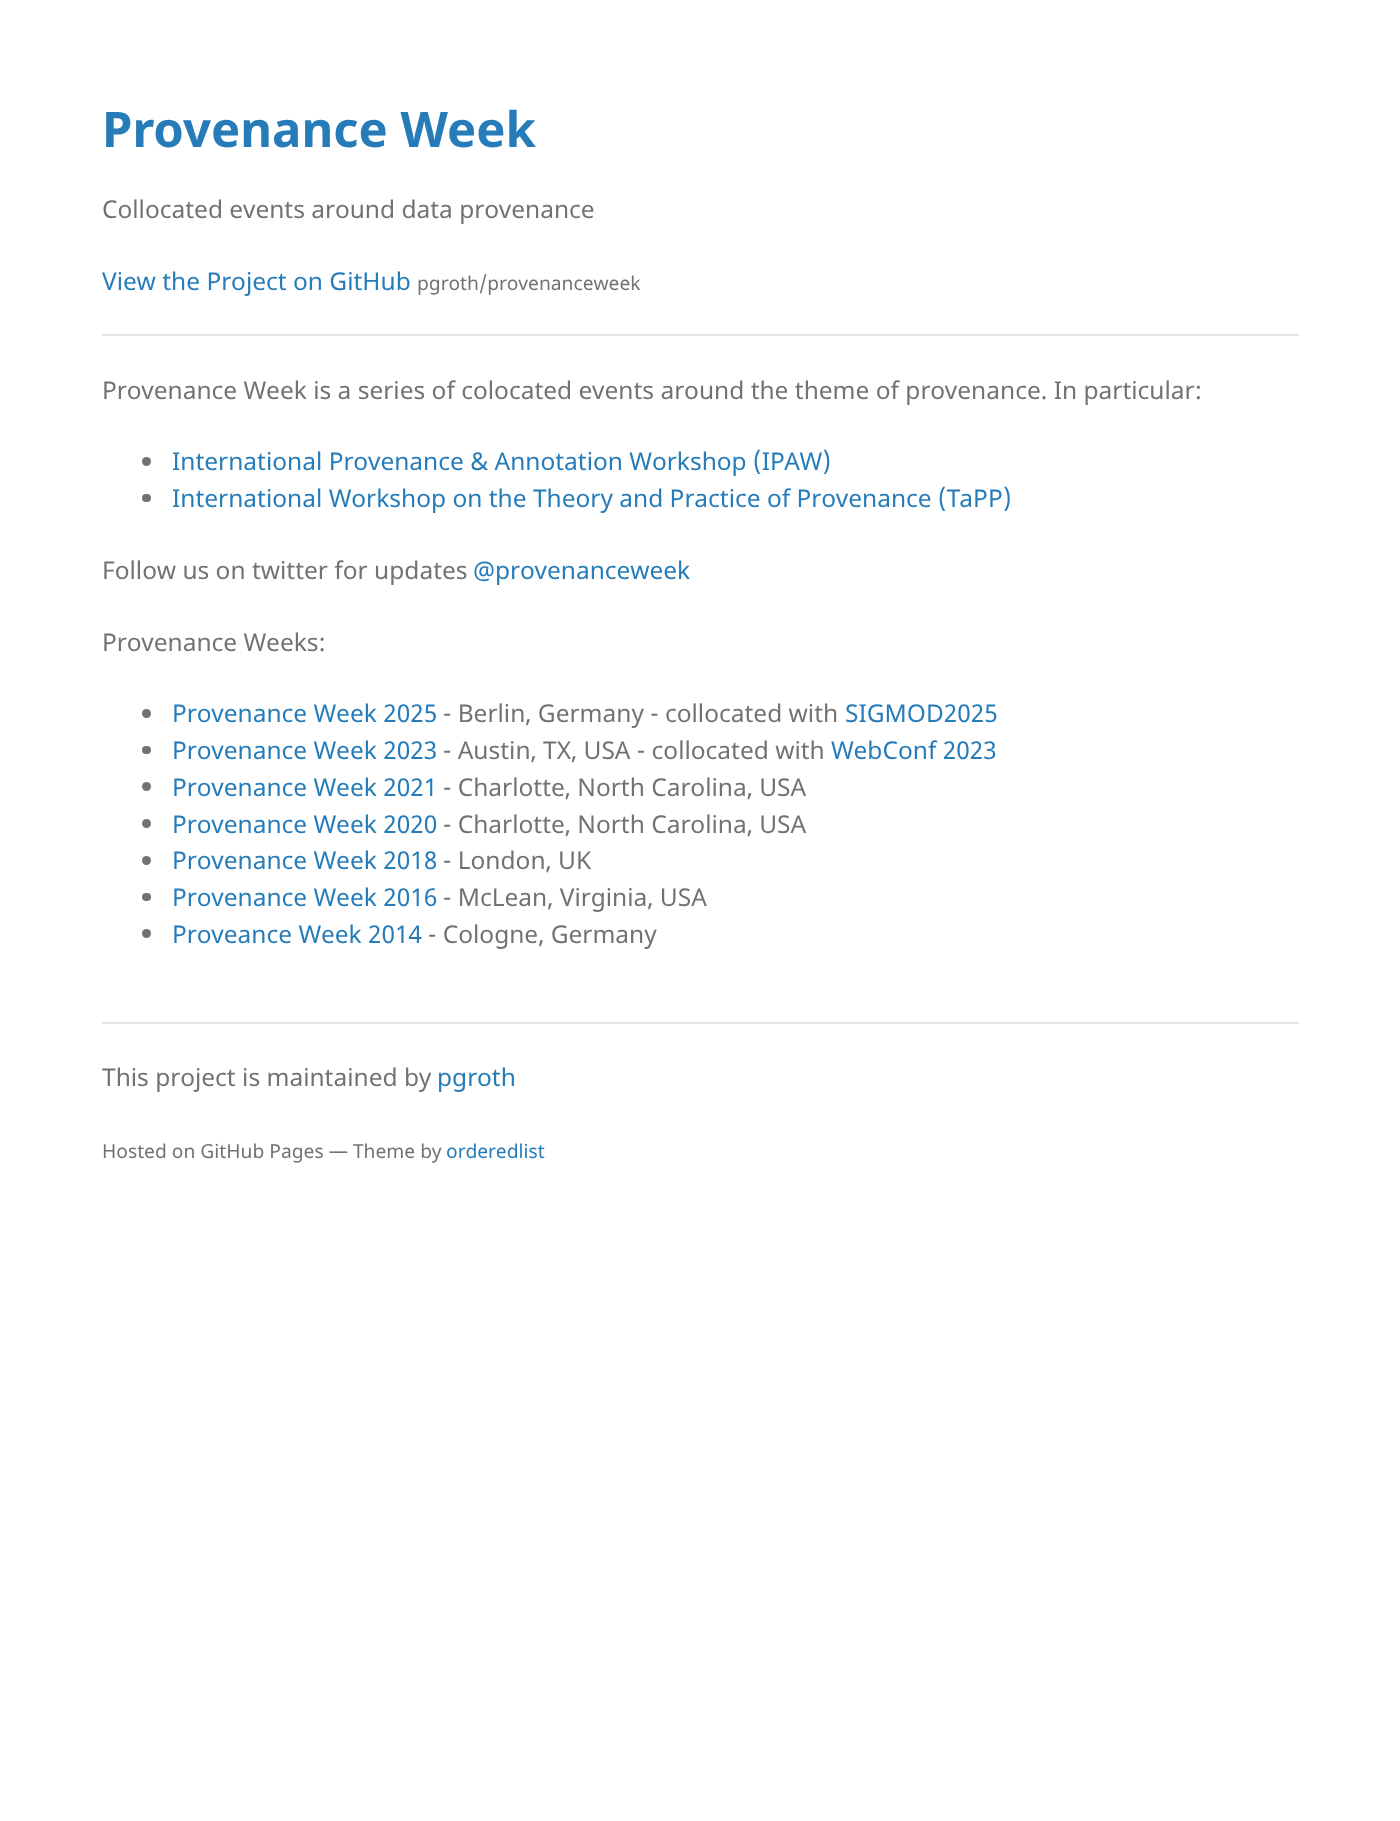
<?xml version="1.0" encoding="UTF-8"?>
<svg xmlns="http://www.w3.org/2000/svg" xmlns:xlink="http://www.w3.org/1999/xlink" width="1400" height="1821">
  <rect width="100%" height="100%" fill="#ffffff" />
  <rect x="102" y="334" width="1197" height="2" fill="#e5e5e5" />
  <rect x="102" y="1022" width="1197" height="2" fill="#e5e5e5" />
  <circle cx="146.5" cy="461.5" r="4.5" fill="#727272" />
  <rect x="142" y="494" width="9" height="8" rx="4" fill="#727272" />
  <circle cx="146.5" cy="713.5" r="4.5" fill="#727272" />
  <rect x="142" y="746" width="9" height="8" rx="4" fill="#727272" />
  <circle cx="146.5" cy="786.5" r="4.5" fill="#727272" />
  <circle cx="146.5" cy="823.5" r="4.5" fill="#727272" />
  <circle cx="146.5" cy="860.5" r="4.5" fill="#727272" />
  <rect x="142" y="893" width="9" height="8" rx="4" fill="#727272" />
  <circle cx="146.5" cy="933.5" r="4.5" fill="#727272" />
  <text x="102" y="147" style="font-family: Noto Sans; font-size: 49px; font-weight: bold; fill: #267cb9">Provenance Week</text>
  <text x="102" y="218" style="font-family: Noto Sans; font-size: 24.5px; fill: #727272">Collocated events around data provenance</text>
  <text x="102" y="290" style="font-family: Noto Sans; font-size: 24.5px; fill: #267cb9">View the Project on GitHub</text>
  <text x="417" y="290" style="font-family: Noto Sans; font-size: 19.25px; fill: #727272">pgroth/provenanceweek</text>
  <text x="102" y="399" style="font-family: Noto Sans; font-size: 24.5px; fill: #727272">Provenance Week is a series of colocated events around the theme of provenance. In particular:</text>
  <text x="172" y="470" style="font-family: Noto Sans; font-size: 24.5px; fill: #267cb9">International Provenance &amp; Annotation Workshop (IPAW)</text>
  <text x="172" y="507" style="font-family: Noto Sans; font-size: 24.5px; fill: #267cb9">International Workshop on the Theory and Practice of Provenance (TaPP)</text>
  <text x="102" y="579" style="font-family: Noto Sans; font-size: 24.5px; fill: #727272">Follow us on twitter for updates</text>
  <text x="473" y="579" style="font-family: Noto Sans; font-size: 24.5px; fill: #267cb9">@provenanceweek</text>
  <text x="102" y="651" style="font-family: Noto Sans; font-size: 24.5px; fill: #727272">Provenance Weeks:</text>
  <text x="172" y="722" style="font-family: Noto Sans; font-size: 24.5px; fill: #267cb9">Provenance Week 2025</text>
  <text x="443" y="722" style="font-family: Noto Sans; font-size: 24.5px; fill: #727272">- Berlin, Germany - collocated with</text>
  <text x="845" y="722" style="font-family: Noto Sans; font-size: 24.5px; fill: #267cb9">SIGMOD2025</text>
  <text x="172" y="759" style="font-family: Noto Sans; font-size: 24.5px; fill: #267cb9">Provenance Week 2023</text>
  <text x="443" y="759" style="font-family: Noto Sans; font-size: 24.5px; fill: #727272">- Austin, TX, USA - collocated with</text>
  <text x="831" y="759" style="font-family: Noto Sans; font-size: 24.5px; fill: #267cb9">WebConf 2023</text>
  <text x="172" y="796" style="font-family: Noto Sans; font-size: 24.5px; fill: #267cb9">Provenance Week 2021</text>
  <text x="443" y="796" style="font-family: Noto Sans; font-size: 24.5px; fill: #727272">- Charlotte, North Carolina, USA</text>
  <text x="172" y="833" style="font-family: Noto Sans; font-size: 24.5px; fill: #267cb9">Provenance Week 2020</text>
  <text x="443" y="833" style="font-family: Noto Sans; font-size: 24.5px; fill: #727272">- Charlotte, North Carolina, USA</text>
  <text x="172" y="869" style="font-family: Noto Sans; font-size: 24.5px; fill: #267cb9">Provenance Week 2018</text>
  <text x="443" y="869" style="font-family: Noto Sans; font-size: 24.5px; fill: #727272">- London, UK</text>
  <text x="172" y="906" style="font-family: Noto Sans; font-size: 24.5px; fill: #267cb9">Provenance Week 2016</text>
  <text x="443" y="906" style="font-family: Noto Sans; font-size: 24.5px; fill: #727272">- McLean, Virginia, USA</text>
  <text x="172" y="943" style="font-family: Noto Sans; font-size: 24.5px; fill: #267cb9">Proveance Week 2014</text>
  <text x="428" y="943" style="font-family: Noto Sans; font-size: 24.5px; fill: #727272">- Cologne, Germany</text>
  <text x="102" y="1086" style="font-family: Noto Sans; font-size: 24.5px; fill: #727272">This project is maintained by</text>
  <text x="437" y="1086" style="font-family: Noto Sans; font-size: 24.5px; fill: #267cb9">pgroth</text>
  <text x="102" y="1158" style="font-family: Noto Sans; font-size: 19.25px; fill: #727272">Hosted on GitHub Pages — Theme by</text>
  <text x="446" y="1158" style="font-family: Noto Sans; font-size: 19.25px; fill: #267cb9">orderedlist</text>
</svg>
